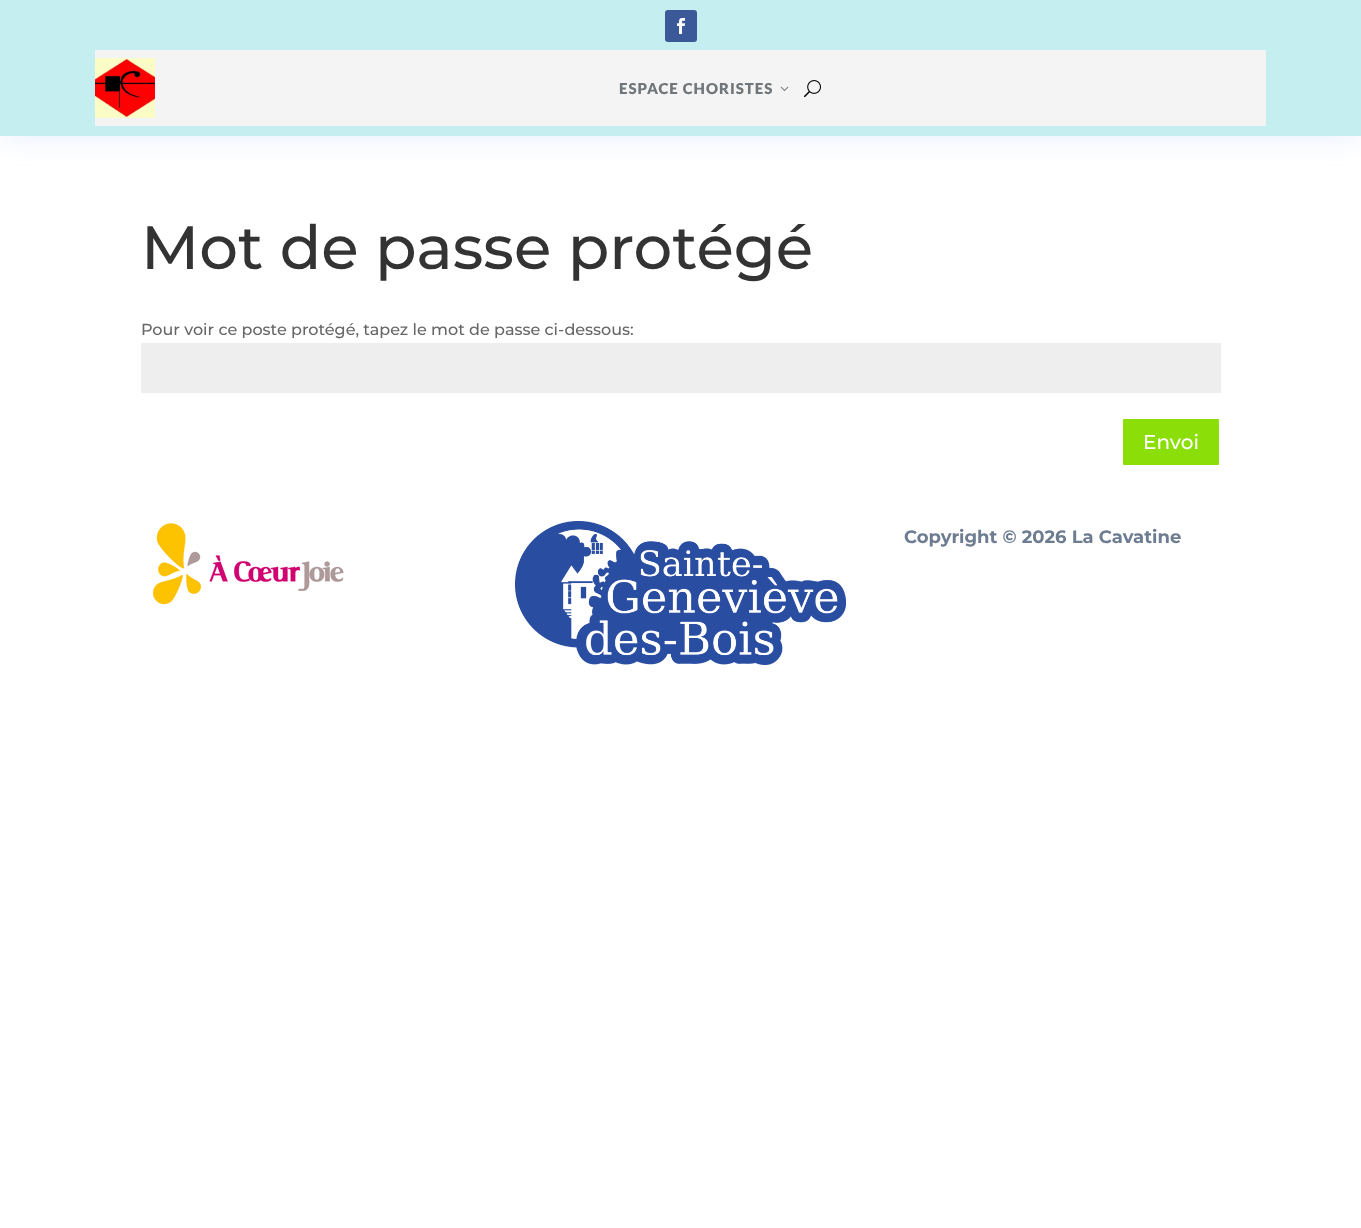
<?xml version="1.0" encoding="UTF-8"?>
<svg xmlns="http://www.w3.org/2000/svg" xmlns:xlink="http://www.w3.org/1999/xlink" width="1361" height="1228">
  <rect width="100%" height="100%" fill="#ffffff" />
  <rect width="1361" height="136" fill="#6797ff" fill-opacity="0.17" filter="blur(15px)" />
  <rect width="1361" height="136" fill="#c4eeef" />
  <rect x="665" y="10" width="32" height="32" rx="3" fill="#3b5998" />
  <image x="677" y="18" width="8" height="16" xlink:href="image1.png" />
  <rect x="95" y="50" width="1171" height="76" fill="#f4f4f4" />
  <image x="95" y="58" width="60" height="60" xlink:href="image2.png" />
  <image x="780" y="86" width="9" height="5" xlink:href="image3.png" />
  <image x="804" y="80" width="17" height="18" xlink:href="image4.png" />
  <rect x="141" y="343" width="1080" height="50" fill="#eeeeee" />
  <rect x="1122" y="418" width="98" height="48" rx="2" fill="#8cde08" stroke="#ffffff" stroke-width="2" />
  <image x="153" y="523" width="191" height="82" xlink:href="image5.png" />
  <image x="515" y="521" width="331" height="144" xlink:href="image6.png" />
  <text x="619" y="94" style="font-family: Lato; font-size: 15px; font-weight: 900; letter-spacing: 1px; fill: #71767a">ESPACE CHORISTES</text>
  <text x="141" y="269" style="font-family: Montserrat; font-size: 61px; font-weight: 100; fill: #333333">Mot de passe protégé</text>
  <text x="141" y="335" style="font-family: Montserrat; font-size: 16px; font-weight: 100; fill: #666666">Pour voir ce poste protégé, tapez le mot de passe ci-dessous:</text>
  <text x="1143" y="449" style="font-family: Montserrat; font-size: 20px; font-weight: 100; fill: #ffffff">Envoi</text>
  <text x="904" y="543" style="font-family: 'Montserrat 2'; font-size: 18px; font-weight: 100; fill: #6d7c90">Copyright © 2026 La Cavatine</text>
</svg>
